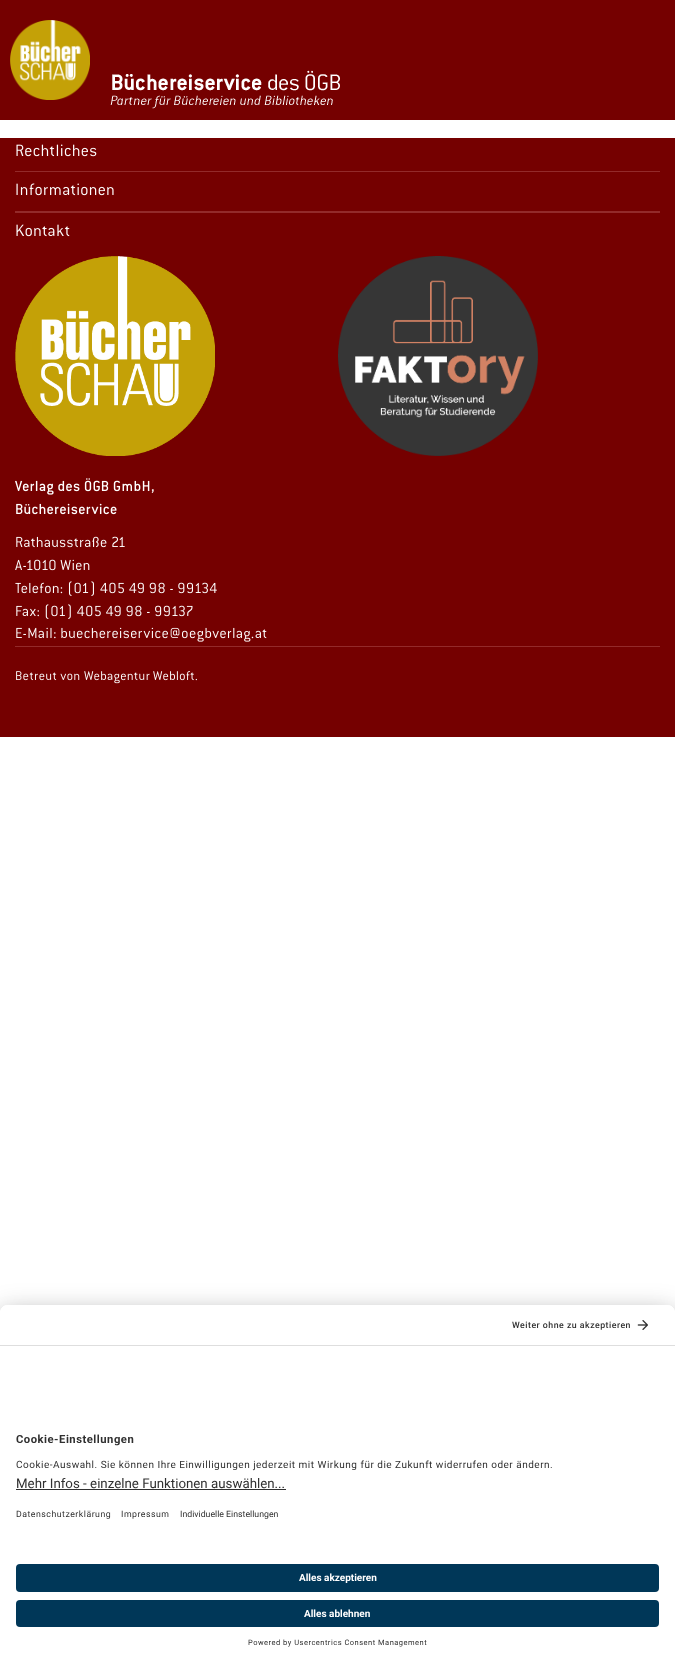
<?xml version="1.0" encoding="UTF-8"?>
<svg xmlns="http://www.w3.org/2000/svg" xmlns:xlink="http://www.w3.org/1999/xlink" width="675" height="1664">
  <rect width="100%" height="100%" fill="#ffffff" />
  <rect width="675" height="120" fill="#750000" />
  <image x="10" y="20" width="80" height="80" xlink:href="image1.png" />
  <image x="110" y="70" width="230" height="39" xlink:href="image2.png" />
  <rect y="138" width="675" height="599" fill="#750000" />
  <rect x="15" y="171" width="645" height="1" fill="#932a2a" />
  <image x="16" y="144" width="81" height="13" xlink:href="image3.png" />
  <rect x="15" y="211" width="645" height="2" fill="#932a2a" />
  <image x="16" y="183" width="98" height="13" xlink:href="image4.png" />
  <rect x="15" y="646" width="645" height="1" fill="#932a2a" />
  <image x="16" y="224" width="54" height="13" xlink:href="image5.png" />
  <image x="15" y="256" width="200" height="200" xlink:href="image6.png" />
  <image x="338" y="256" width="200" height="200" xlink:href="image7.png" />
  <image x="15" y="478" width="139" height="17" xlink:href="image8.png" />
  <image x="16" y="503" width="101" height="12" xlink:href="image9.png" />
  <image x="16" y="536" width="109" height="12" xlink:href="image10.png" />
  <image x="15" y="559" width="75" height="12" xlink:href="image11.png" />
  <image x="15" y="581" width="202" height="15" xlink:href="image12.png" />
  <image x="16" y="604" width="177" height="15" xlink:href="image13.png" />
  <image x="16" y="627" width="251" height="15" xlink:href="image14.png" />
  <image x="16" y="671" width="64" height="10" xlink:href="image15.png" />
  <image x="84" y="671" width="66" height="13" xlink:href="image16.png" />
  <image x="153" y="671" width="44" height="10" xlink:href="image17.png" />
  <rect y="1325" width="675" height="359" rx="8" fill="#000000" fill-opacity="0.3" filter="blur(14px)" />
  <rect y="1310" width="675" height="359" rx="8" fill="#000000" fill-opacity="0.22" filter="blur(13px)" />
  <path d="M 8 1305 h 659 c 4.5 0 8 3.5 8 8 v 351 h -675 v -351 c 0 -4.5 3.5 -8 8 -8 z" fill="#ffffff" />
  <path d="M 8 1305 h 659 c 4.5 0 8 3.5 8 8 v 33 h -675 v -33 c 0 -4.5 3.5 -8 8 -8 z" fill="#ffffff" />
  <rect y="1345" width="675" height="1" fill="#dedede" />
  <image x="637" y="1320" width="11" height="10" xlink:href="image18.png" />
  <rect x="16" y="1489" width="270" height="1" fill="#303030" />
  <rect x="16" y="1564" width="643" height="28" rx="4" fill="#003758" />
  <rect x="16" y="1600" width="643" height="27" rx="4" fill="#003758" />
  <text x="512" y="1328" style="font-family: Roboto; font-size: 8.75px; font-weight: 500; letter-spacing: 0.5px; fill: #303030">Weiter ohne zu akzeptieren</text>
  <text x="16" y="1443" style="font-family: Roboto; font-size: 11.25px; font-weight: bold; letter-spacing: 0.5px; fill: #303030">Cookie-Einstellungen</text>
  <text x="16" y="1468" style="font-family: Roboto; font-size: 10px; letter-spacing: 0.5px; fill: #303030">Cookie-Auswahl. Sie können Ihre Einwilligungen jederzeit mit Wirkung für die Zukunft widerrufen oder ändern.</text>
  <text x="16" y="1488" style="font-family: Roboto; font-size: 13.3px; fill: #303030">Mehr Infos - einzelne Funktionen auswählen...</text>
  <text x="16" y="1517" style="font-family: Roboto; font-size: 8.75px; letter-spacing: 0.5px; fill: #303030">Datenschutzerklärung</text>
  <text x="121" y="1517" style="font-family: Roboto; font-size: 8.75px; letter-spacing: 0.5px; fill: #303030">Impressum</text>
  <text x="180" y="1517" style="font-family: Roboto; font-size: 8.75px; fill: #303030">Individuelle Einstellungen</text>
  <text x="299" y="1581" style="font-family: Roboto; font-size: 10px; font-weight: bold; fill: #ffffff">Alles akzeptieren</text>
  <text x="304" y="1617" style="font-family: Roboto; font-size: 10px; font-weight: bold; fill: #ffffff">Alles ablehnen</text>
  <text x="248" y="1645" style="font-family: Roboto; font-size: 7.5px; letter-spacing: 0.5px; fill: #303030">Powered by Usercentrics Consent Management</text>
</svg>
